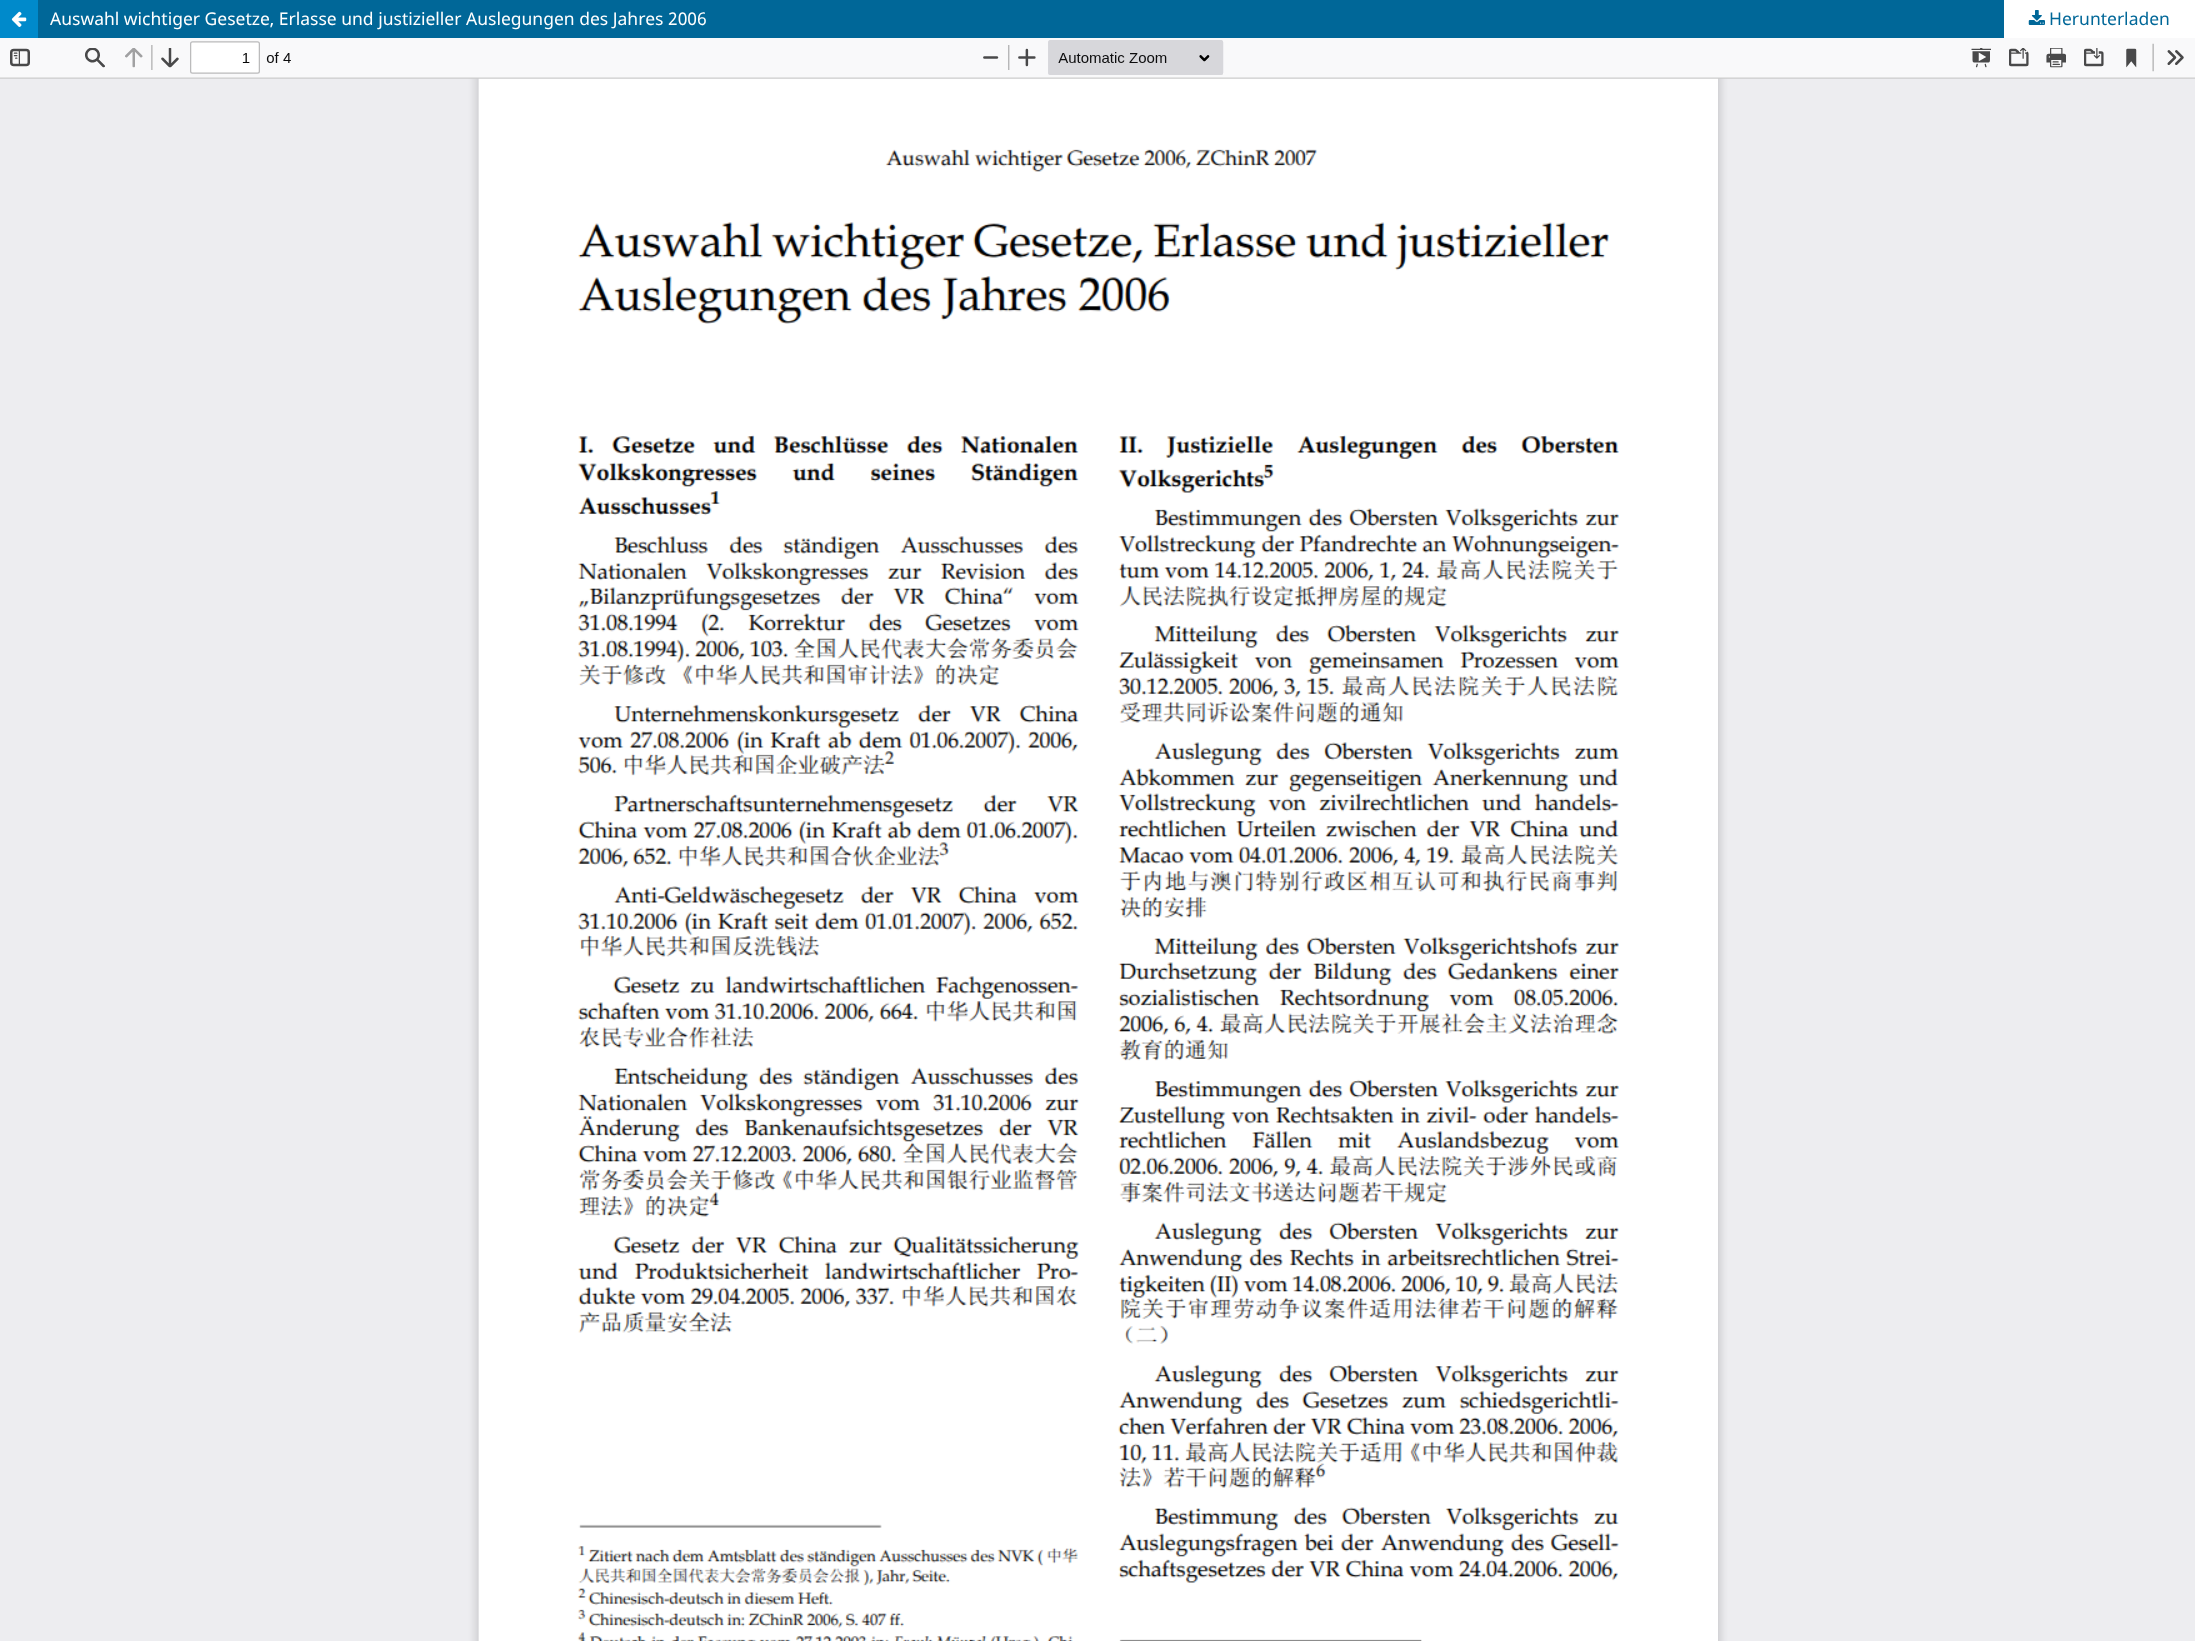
<?xml version="1.0" encoding="UTF-8"?>
<svg xmlns="http://www.w3.org/2000/svg" xmlns:xlink="http://www.w3.org/1999/xlink" width="2195" height="1641">
  <rect width="100%" height="100%" fill="#ffffff" />
  <rect x="38" width="1966" height="38" fill="#006798" />
  <rect width="38" height="38" fill="#008acb" />
  <image x="11" y="11" width="16" height="16" xlink:href="image1.png" />
  <image x="2028" y="10" width="17" height="15" xlink:href="image2.png" />
  <image x="0" y="38" width="2195" height="1603" xlink:href="image3.png" />
  <text x="50" y="25" style="font-family: Noto Sans; font-size: 17.5px; fill: #ffffff">Auswahl wichtiger Gesetze, Erlasse und justizieller Auslegungen des Jahres 2006</text>
  <text x="2049" y="25" style="font-family: Noto Sans; font-size: 17.5px; fill: #006798">Herunterladen</text>
</svg>
